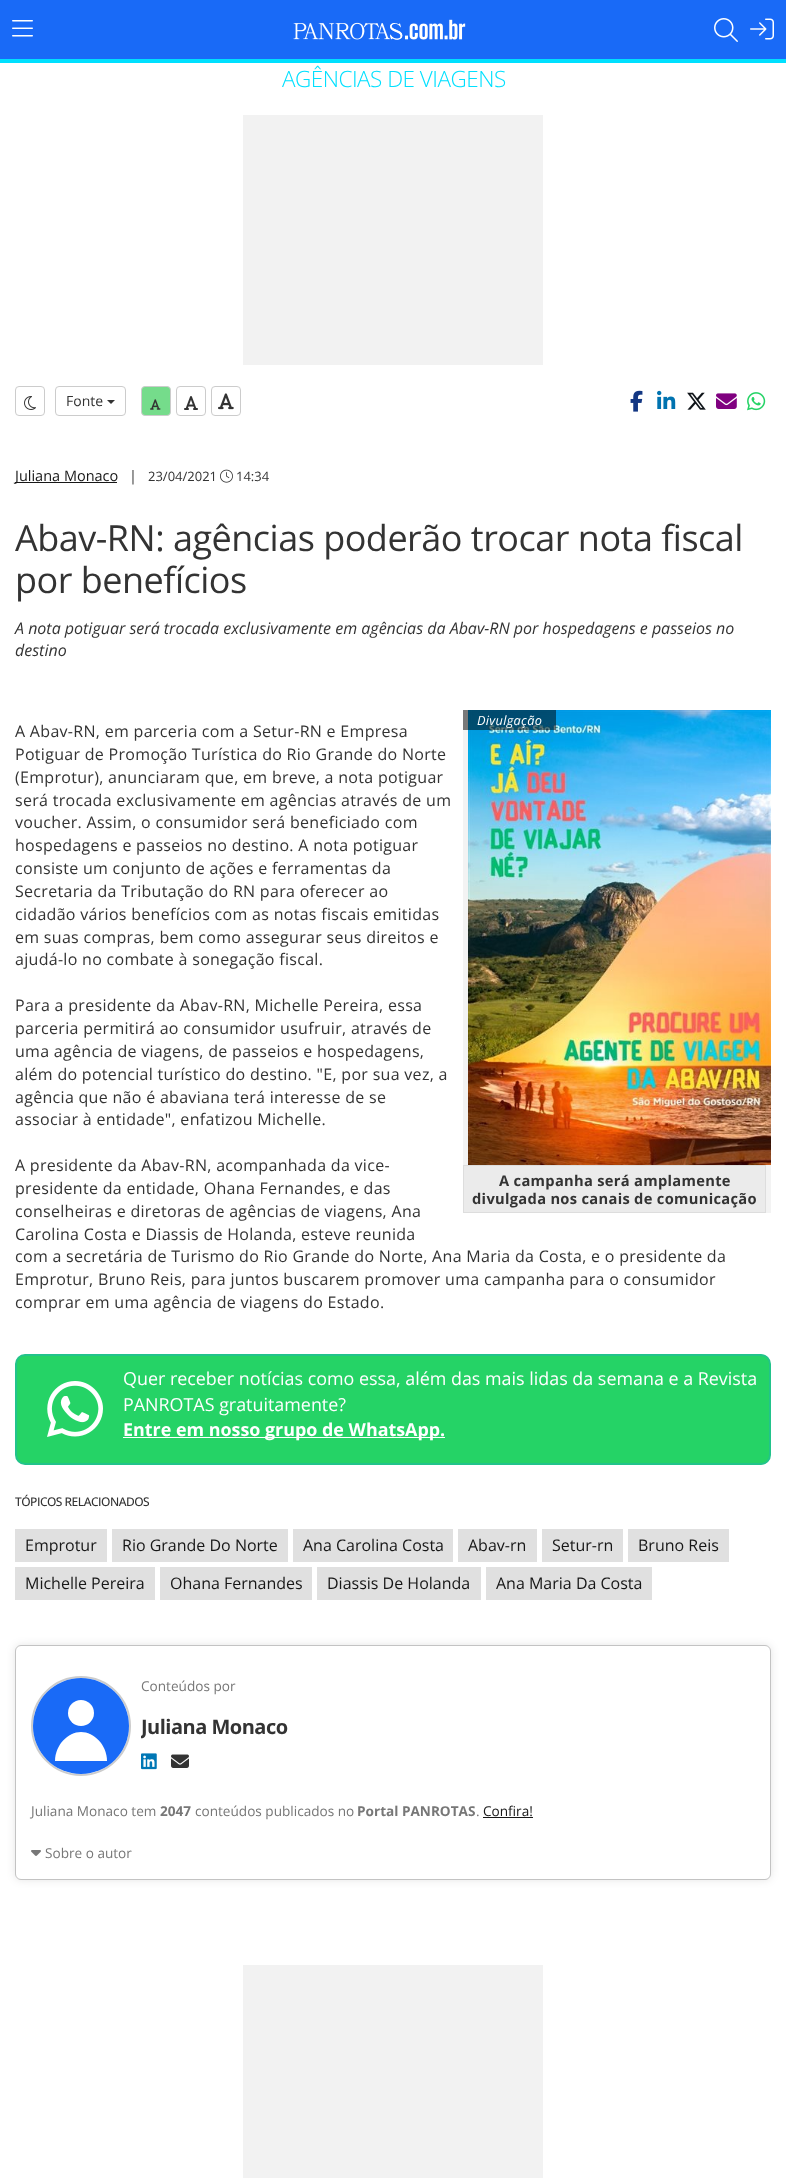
<?xml version="1.0" encoding="UTF-8"?>
<svg xmlns="http://www.w3.org/2000/svg" xmlns:xlink="http://www.w3.org/1999/xlink" width="786" height="2178">
  <defs>
    <clipPath id="clip1"><rect x="141" y="1676" width="614" height="105" /></clipPath>
  </defs>
  <rect width="100%" height="100%" fill="#ffffff" />
  <rect width="786" height="59" fill="#196af7" />
  <image x="12" y="20" width="21" height="17" xlink:href="image1.png" />
  <image x="293" y="19" width="173" height="21" xlink:href="image2.png" />
  <image x="714" y="18" width="24" height="24" xlink:href="image3.png" />
  <image x="750" y="18" width="24" height="22" xlink:href="image4.png" />
  <rect y="59" width="786" height="4" fill="#00e0ff" />
  <rect x="243" y="115" width="300" height="250" fill="#f2f2f2" />
  <rect x="15.5" y="386.5" width="29" height="29" rx="3.5" fill="none" stroke="#cccccc" />
  <image x="24" y="396" width="12" height="14" xlink:href="image5.png" />
  <rect x="55.5" y="386.5" width="70" height="29" rx="3.5" fill="none" stroke="#cccccc" />
  <path d="M 107 400 h 8 l -4 4 z" fill="#333333" />
  <rect x="141.5" y="386.5" width="29" height="29" rx="3.5" fill="#75dc8b" stroke="#cccccc" />
  <image x="150" y="399" width="11" height="11" xlink:href="image6.png" />
  <rect x="176.5" y="386.5" width="29" height="29" rx="3.5" fill="none" stroke="#cccccc" />
  <image x="184" y="396" width="14" height="14" xlink:href="image7.png" />
  <rect x="211.5" y="386.5" width="29" height="29" rx="3.5" fill="none" stroke="#cccccc" />
  <image x="218" y="393" width="16" height="17" xlink:href="image8.png" />
  <image x="630" y="390" width="13" height="22" xlink:href="image9.png" />
  <image x="657" y="390" width="19" height="19" xlink:href="image10.png" />
  <image x="687" y="392" width="19" height="18" xlink:href="image11.png" />
  <image x="716" y="393" width="21" height="16" xlink:href="image12.png" />
  <image x="747" y="392" width="19" height="19" xlink:href="image13.png" />
  <rect x="15" y="482" width="102" height="1" fill="#171717" />
  <image x="220" y="469" width="13" height="14" xlink:href="image14.png" />
  <rect x="463" y="710" width="308" height="503" fill="#f3f3f3" />
  <image x="468" y="710" width="303" height="455" xlink:href="image15.png" />
  <rect x="463" y="710" width="93" height="20" fill="#000000" fill-opacity="0.5" />
  <rect x="463.5" y="1165.5" width="302" height="47" fill="#ebebeb" stroke="#dddddd" />
  <rect x="16" y="1355" width="754" height="109" rx="9" fill="#25d366" stroke="#22c38b" stroke-width="2" />
  <image x="47" y="1381" width="56" height="56" xlink:href="image16.png" />
  <rect x="123" y="1437" width="322" height="1" fill="#ffffff" />
  <rect x="15" y="1529" width="92" height="33" fill="#e0e0e0" />
  <rect x="112" y="1529" width="176" height="33" fill="#e0e0e0" />
  <rect x="293" y="1529" width="160" height="33" fill="#e0e0e0" />
  <rect x="458" y="1529" width="79" height="33" fill="#e0e0e0" />
  <rect x="542" y="1529" width="81" height="33" fill="#e0e0e0" />
  <rect x="628" y="1529" width="101" height="33" fill="#e0e0e0" />
  <rect x="15" y="1567" width="140" height="33" fill="#e0e0e0" />
  <rect x="160" y="1567" width="152" height="33" fill="#e0e0e0" />
  <rect x="317" y="1567" width="164" height="33" fill="#e0e0e0" />
  <rect x="486" y="1567" width="166" height="33" fill="#e0e0e0" />
  <rect x="15" y="1645" width="756" height="235" rx="6" fill="#000000" fill-opacity="0.1" filter="blur(4px)" />
  <rect x="15.5" y="1645.5" width="755" height="234" rx="5.5" fill="#ffffff" stroke="#c3c3c3" />
  <circle cx="81" cy="1726" r="49" fill="none" stroke="#cccccc" stroke-width="2" />
  <circle cx="81" cy="1726" r="48" fill="#196af7" />
  <circle cx="81" cy="1713" r="13" fill="#ffffff" />
  <path d="M 55 1761 c 0 -16 13 -29 26 -29 c 13 0 26 13 26 29 z" fill="#ffffff" />
  <image x="141" y="1753" width="16" height="17" xlink:href="image17.png" />
  <image x="171" y="1754" width="18" height="14" xlink:href="image18.png" />
  <rect x="483" y="1817" width="50" height="1" fill="#171717" />
  <image x="31" y="1850" width="10" height="6" xlink:href="image19.png" />
  <rect x="243" y="1965" width="300" height="213" fill="#f2f2f2" />
  <text x="282" y="87" style="font-family: Open Sans; font-size: 22.5px; font-weight: 300; letter-spacing: -0.5px; fill: #00e0ff">AGÊNCIAS DE VIAGENS</text>
  <text x="66" y="406" style="font-family: Open Sans; font-size: 14px; fill: #333333">Fonte</text>
  <text x="15" y="481" style="font-family: Open Sans; font-size: 14.5px; fill: #171717">Juliana Monaco</text>
  <text x="129" y="481" style="font-family: Open Sans; font-size: 14.5px; fill: #333333">|</text>
  <text x="148" y="481" style="font-family: Open Sans; font-size: 13px; fill: #333333">23/04/2021</text>
  <text x="236" y="481" style="font-family: Open Sans; font-size: 13px; fill: #333333">14:34</text>
  <text x="15" y="551" style="font-family: Open Sans; font-size: 36px; letter-spacing: -0.5px; fill: #333333">Abav-RN: agências poderão trocar nota fiscal</text>
  <text x="15" y="593" style="font-family: Open Sans; font-size: 36px; letter-spacing: -0.5px; fill: #333333">por benefícios</text>
  <text x="15" y="634" style="font-family: Open Sans; font-size: 16px; font-style: italic; fill: #333333">A nota potiguar será trocada exclusivamente em agências da Abav-RN por hospedagens e passeios no</text>
  <text x="15" y="656" style="font-family: Open Sans; font-size: 16px; font-style: italic; fill: #333333">destino</text>
  <text x="15" y="737" style="font-family: Open Sans; font-size: 16px; letter-spacing: 0.3px; fill: #333333">A Abav-RN, em parceria com a Setur-RN e Empresa</text>
  <text x="477" y="725" style="font-family: Open Sans; font-size: 12.75px; font-style: italic; letter-spacing: 0.3px; fill: #ffffff">Divulgação</text>
  <text x="499" y="1186" style="font-family: Open Sans; font-size: 14.7px; font-weight: bold; letter-spacing: 0.3px; fill: #333333">A campanha será amplamente</text>
  <text x="472" y="1204" style="font-family: Open Sans; font-size: 14.7px; font-weight: bold; letter-spacing: 0.3px; fill: #333333">divulgada nos canais de comunicação</text>
  <text x="15" y="760" style="font-family: Open Sans; font-size: 16px; letter-spacing: 0.3px; fill: #333333">Potiguar de Promoção Turística do Rio Grande do Norte</text>
  <text x="15" y="783" style="font-family: Open Sans; font-size: 16px; letter-spacing: 0.3px; fill: #333333">(Emprotur), anunciaram que, em breve, a nota potiguar</text>
  <text x="15" y="806" style="font-family: Open Sans; font-size: 16px; letter-spacing: 0.3px; fill: #333333">será trocada exclusivamente em agências através de um</text>
  <text x="15" y="828" style="font-family: Open Sans; font-size: 16px; letter-spacing: 0.3px; fill: #333333">voucher. Assim, o consumidor será beneficiado com</text>
  <text x="15" y="851" style="font-family: Open Sans; font-size: 16px; letter-spacing: 0.3px; fill: #333333">hospedagens e passeios no destino. A nota potiguar</text>
  <text x="15" y="874" style="font-family: Open Sans; font-size: 16px; letter-spacing: 0.3px; fill: #333333">consiste um conjunto de ações e ferramentas da</text>
  <text x="15" y="897" style="font-family: Open Sans; font-size: 16px; letter-spacing: 0.3px; fill: #333333">Secretaria da Tributação do RN para oferecer ao</text>
  <text x="15" y="920" style="font-family: Open Sans; font-size: 16px; letter-spacing: 0.3px; fill: #333333">cidadão vários benefícios com as notas fiscais emitidas</text>
  <text x="15" y="943" style="font-family: Open Sans; font-size: 16px; letter-spacing: 0.3px; fill: #333333">em suas compras, bem como assegurar seus direitos e</text>
  <text x="15" y="965" style="font-family: Open Sans; font-size: 16px; letter-spacing: 0.3px; fill: #333333">ajudá-lo no combate à sonegação fiscal.</text>
  <text x="15" y="1011" style="font-family: Open Sans; font-size: 16px; letter-spacing: 0.3px; fill: #333333">Para a presidente da Abav-RN, Michelle Pereira, essa</text>
  <text x="15" y="1034" style="font-family: Open Sans; font-size: 16px; letter-spacing: 0.3px; fill: #333333">parceria permitirá ao consumidor usufruir, através de</text>
  <text x="15" y="1057" style="font-family: Open Sans; font-size: 16px; letter-spacing: 0.3px; fill: #333333">uma agência de viagens, de passeios e hospedagens,</text>
  <text x="15" y="1080" style="font-family: Open Sans; font-size: 16px; letter-spacing: 0.3px; fill: #333333">além do potencial turístico do destino. "E, por sua vez, a</text>
  <text x="15" y="1103" style="font-family: Open Sans; font-size: 16px; letter-spacing: 0.3px; fill: #333333">agência que não é abaviana terá interesse de se</text>
  <text x="15" y="1125" style="font-family: Open Sans; font-size: 16px; letter-spacing: 0.3px; fill: #333333">associar à entidade", enfatizou Michelle.</text>
  <text x="15" y="1171" style="font-family: Open Sans; font-size: 16px; letter-spacing: 0.3px; fill: #333333">A presidente da Abav-RN, acompanhada da vice-</text>
  <text x="15" y="1194" style="font-family: Open Sans; font-size: 16px; letter-spacing: 0.3px; fill: #333333">presidente da entidade, Ohana Fernandes, e das</text>
  <text x="15" y="1217" style="font-family: Open Sans; font-size: 16px; letter-spacing: 0.3px; fill: #333333">conselheiras e diretoras de agências de viagens, Ana</text>
  <text x="15" y="1240" style="font-family: Open Sans; font-size: 16px; letter-spacing: 0.3px; fill: #333333">Carolina Costa e Diassis de Holanda, esteve reunida</text>
  <text x="15" y="1262" style="font-family: Open Sans; font-size: 16px; letter-spacing: 0.3px; fill: #333333">com a secretária de Turismo do Rio Grande do Norte, Ana Maria da Costa, e o presidente da</text>
  <text x="15" y="1285" style="font-family: Open Sans; font-size: 16px; letter-spacing: 0.3px; fill: #333333">Emprotur, Bruno Reis, para juntos buscarem promover uma campanha para o consumidor</text>
  <text x="15" y="1308" style="font-family: Open Sans; font-size: 16px; letter-spacing: 0.3px; fill: #333333">comprar em uma agência de viagens do Estado.</text>
  <text x="123" y="1385" style="font-family: Open Sans; font-size: 17.9px; fill: #ffffff">Quer receber notícias como essa, além das mais lidas da semana e a Revista</text>
  <text x="123" y="1411" style="font-family: Open Sans; font-size: 17.9px; fill: #ffffff">PANROTAS gratuitamente?</text>
  <text x="123" y="1436" style="font-family: Open Sans; font-size: 17.9px; font-weight: bold; fill: #ffffff">Entre em nosso grupo de WhatsApp.</text>
  <text x="15" y="1506" style="font-family: Open Sans; font-size: 12px; font-weight: 500; letter-spacing: -0.5px; fill: #333333">TÓPICOS RELACIONADOS</text>
  <text x="25" y="1551" style="font-family: Open Sans; font-size: 16px; fill: #171717">Emprotur</text>
  <text x="122" y="1551" style="font-family: Open Sans; font-size: 16px; fill: #171717">Rio Grande Do Norte</text>
  <text x="303" y="1551" style="font-family: Open Sans; font-size: 16px; fill: #171717">Ana Carolina Costa</text>
  <text x="468" y="1551" style="font-family: Open Sans; font-size: 16px; fill: #171717">Abav-rn</text>
  <text x="552" y="1551" style="font-family: Open Sans; font-size: 16px; fill: #171717">Setur-rn</text>
  <text x="638" y="1551" style="font-family: Open Sans; font-size: 16px; fill: #171717">Bruno Reis</text>
  <text x="25" y="1589" style="font-family: Open Sans; font-size: 16px; fill: #171717">Michelle Pereira</text>
  <text x="170" y="1589" style="font-family: Open Sans; font-size: 16px; fill: #171717">Ohana Fernandes</text>
  <text x="327" y="1589" style="font-family: Open Sans; font-size: 16px; fill: #171717">Diassis De Holanda</text>
  <text x="496" y="1589" style="font-family: Open Sans; font-size: 16px; fill: #171717">Ana Maria Da Costa</text>
  <text x="141" y="1691" style="font-family: Open Sans; font-size: 13.6px; fill: #777777">Conteúdos por</text>
  <g clip-path="url(#clip1)">
    <text x="141" y="1734" style="font-family: Open Sans; font-size: 20px; font-weight: bold; letter-spacing: -0.5px; fill: #333333">Juliana Monaco</text>
  </g>
  <text x="31" y="1816" style="font-family: Open Sans; font-size: 13.6px; fill: #777777">Juliana Monaco tem</text>
  <text x="160" y="1816" style="font-family: Open Sans; font-size: 13.6px; font-weight: bold; fill: #777777">2047</text>
  <text x="195" y="1816" style="font-family: Open Sans; font-size: 13.6px; fill: #777777">conteúdos publicados no</text>
  <text x="357" y="1816" style="font-family: Open Sans; font-size: 13.6px; font-weight: bold; fill: #777777">Portal PANROTAS</text>
  <text x="476" y="1816" style="font-family: Open Sans; font-size: 13.6px; fill: #777777">.</text>
  <text x="483" y="1816" style="font-family: Open Sans; font-size: 13.6px; fill: #171717">Confira!</text>
  <text x="45" y="1858" style="font-family: Open Sans; font-size: 13.6px; fill: #777777">Sobre o autor</text>
</svg>
